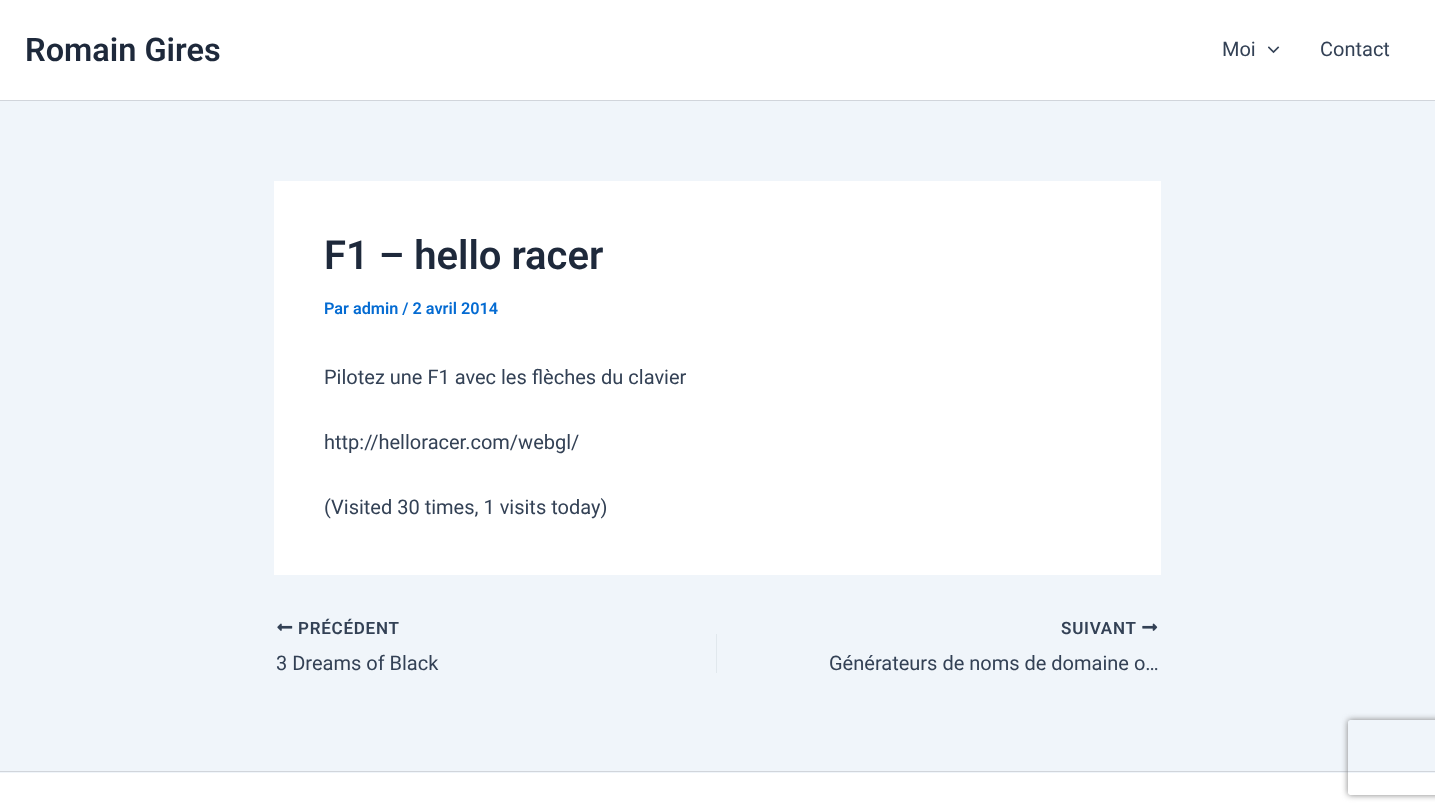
<?xml version="1.0" encoding="UTF-8"?>
<svg xmlns="http://www.w3.org/2000/svg" xmlns:xlink="http://www.w3.org/1999/xlink" width="1435" height="812">
  <defs>
    <clipPath id="clip1"><path d="M 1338 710 h 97 v 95 h -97 z m 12.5 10 h 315 c 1.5 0 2.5 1 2.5 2.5 v 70 c 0 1.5 -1 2.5 -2.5 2.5 h -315 c -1.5 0 -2.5 -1 -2.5 -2.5 v -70 c 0 -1.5 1 -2.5 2.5 -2.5 z" clip-rule="evenodd" /></clipPath>
  </defs>
  <rect width="100%" height="100%" fill="#f0f5fa" />
  <rect width="1435" height="100" fill="#ffffff" />
  <rect y="100" width="1435" height="1" fill="#d1d5db" />
  <image x="1268" y="46" width="12" height="8" xlink:href="image1.png" />
  <rect x="274" y="181" width="887" height="394" fill="#ffffff" />
  <image x="277" y="623" width="16" height="8" xlink:href="image2.png" />
  <rect x="716" y="634" width="1" height="39" fill="#e1e8ed" />
  <image x="1142" y="623" width="16" height="8" xlink:href="image3.png" />
  <rect y="773" width="1435" height="39" fill="#ffffff" />
  <rect y="771" width="1435" height="1" fill="#d1d5db" />
  <g clip-path="url(#clip1)">
    <rect x="1348" y="720" width="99" height="75" rx="2.5" fill="#808080" filter="blur(3px)" />
  </g>
  <text x="25" y="61" style="font-family: Roboto; font-size: 32.5px; font-weight: 600; fill: #1e293b">Romain Gires</text>
  <text x="1222" y="56" style="font-family: Roboto; font-size: 20px; fill: #334155">Moi</text>
  <text x="1320" y="56" style="font-family: Roboto; font-size: 20px; fill: #334155">Contact</text>
  <text x="324" y="269" style="font-family: Roboto; font-size: 40px; font-weight: 600; fill: #1e293b">F1 – hello racer</text>
  <text x="324" y="314" style="font-family: Roboto; font-size: 16.25px; font-weight: 600; fill: #046bd2">Par admin / 2 avril 2014</text>
  <text x="324" y="384" style="font-family: Roboto; font-size: 20px; fill: #334155">Pilotez une F1 avec les flèches du clavier</text>
  <text x="324" y="449" style="font-family: Roboto; font-size: 20px; fill: #334155">http://helloracer.com/webgl/</text>
  <text x="324" y="514" style="font-family: Roboto; font-size: 20px; fill: #334155">(Visited 30 times, 1 visits today)</text>
  <text x="298" y="634" style="font-family: Roboto; font-size: 17px; font-weight: 600; letter-spacing: 0.75px; fill: #334155">PRÉCÉDENT</text>
  <text x="276" y="670" style="font-family: Roboto; font-size: 20px; fill: #334155">3 Dreams of Black</text>
  <text x="1061" y="634" style="font-family: Roboto; font-size: 17px; font-weight: 600; letter-spacing: 0.75px; fill: #334155">SUIVANT</text>
  <text x="829" y="670" style="font-family: Roboto; font-size: 20px; fill: #334155">Générateurs de noms de domaine o…</text>
</svg>
